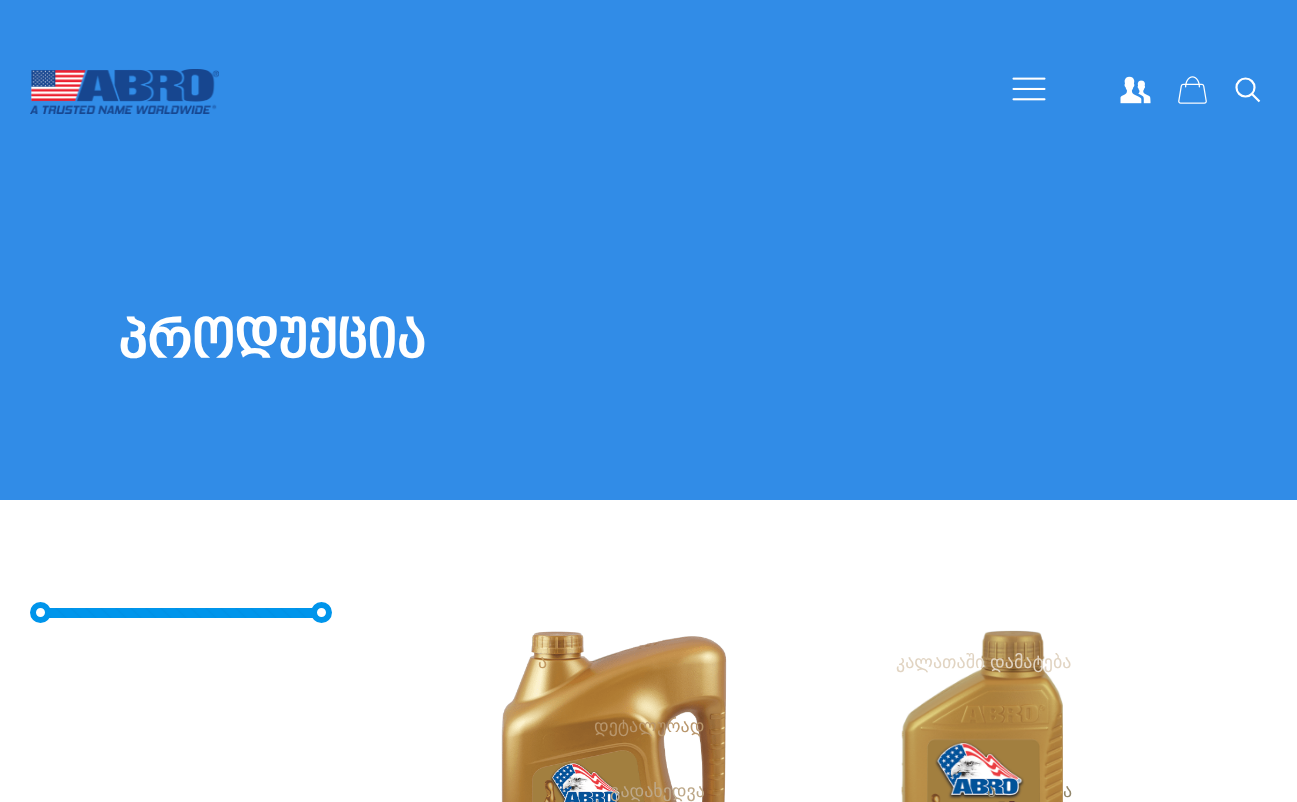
<?xml version="1.0" encoding="UTF-8"?>
<svg xmlns="http://www.w3.org/2000/svg" xmlns:xlink="http://www.w3.org/1999/xlink" width="1297" height="802">
  <rect width="100%" height="100%" fill="#318ce7" />
  <image x="30" y="69" width="189" height="45" xlink:href="image1.png" />
  <image x="1012" y="77" width="34" height="24" xlink:href="image2.png" />
  <image x="1120" y="76" width="31" height="28" xlink:href="image3.png" />
  <image x="1178" y="76" width="29" height="28" xlink:href="image4.png" />
  <circle cx="1245.5" cy="87.5" r="9" fill="none" stroke="#ffffff" stroke-width="2.2" />
  <path d="M 1252 94 l 7.5 7.5" fill="none" stroke="#ffffff" stroke-width="2.2" />
  <rect y="500" width="1297" height="302" fill="#ffffff" />
  <rect x="49" y="608" width="264" height="10" fill="#0095eb" />
  <image x="50" y="608" width="262" height="10" xlink:href="image5.png" />
  <circle cx="40.5" cy="612.5" r="7.5" fill="#ffffff" stroke="#0095eb" stroke-width="6" />
  <circle cx="321.5" cy="612.5" r="7.5" fill="#ffffff" stroke="#0095eb" stroke-width="6" />
  <image x="501" y="631" width="226" height="171" xlink:href="image6.png" />
  <image x="901" y="630" width="162" height="172" xlink:href="image7.png" />
  <text x="118" y="357" style="font-family: 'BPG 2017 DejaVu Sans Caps'; font-size: 46.5px; font-weight: bold; fill: #ffffff">პროდუქცია</text>
  <text x="538" y="668" style="font-family: 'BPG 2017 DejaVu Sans'; font-size: 18px; fill: #c29961">ა</text>
  <text x="594" y="732" style="font-family: 'BPG 2017 DejaVu Sans'; font-size: 18px; fill: #b9976d">დეტალურად</text>
  <text x="610" y="797" style="font-family: 'BPG 2017 DejaVu Sans'; font-size: 18px; fill: #bda889">გადახედვა</text>
  <text x="896" y="668" style="font-family: 'BPG 2017 DejaVu Sans'; font-size: 18px; fill: #e1d4c2">კალათაში დამატება</text>
  <text x="987" y="797" style="font-family: 'BPG 2017 DejaVu Sans'; font-size: 18px; fill: #91866a">ა</text>
  <text x="1063" y="797" style="font-family: 'BPG 2017 DejaVu Sans'; font-size: 18px; fill: #91866a">ა</text>
</svg>
